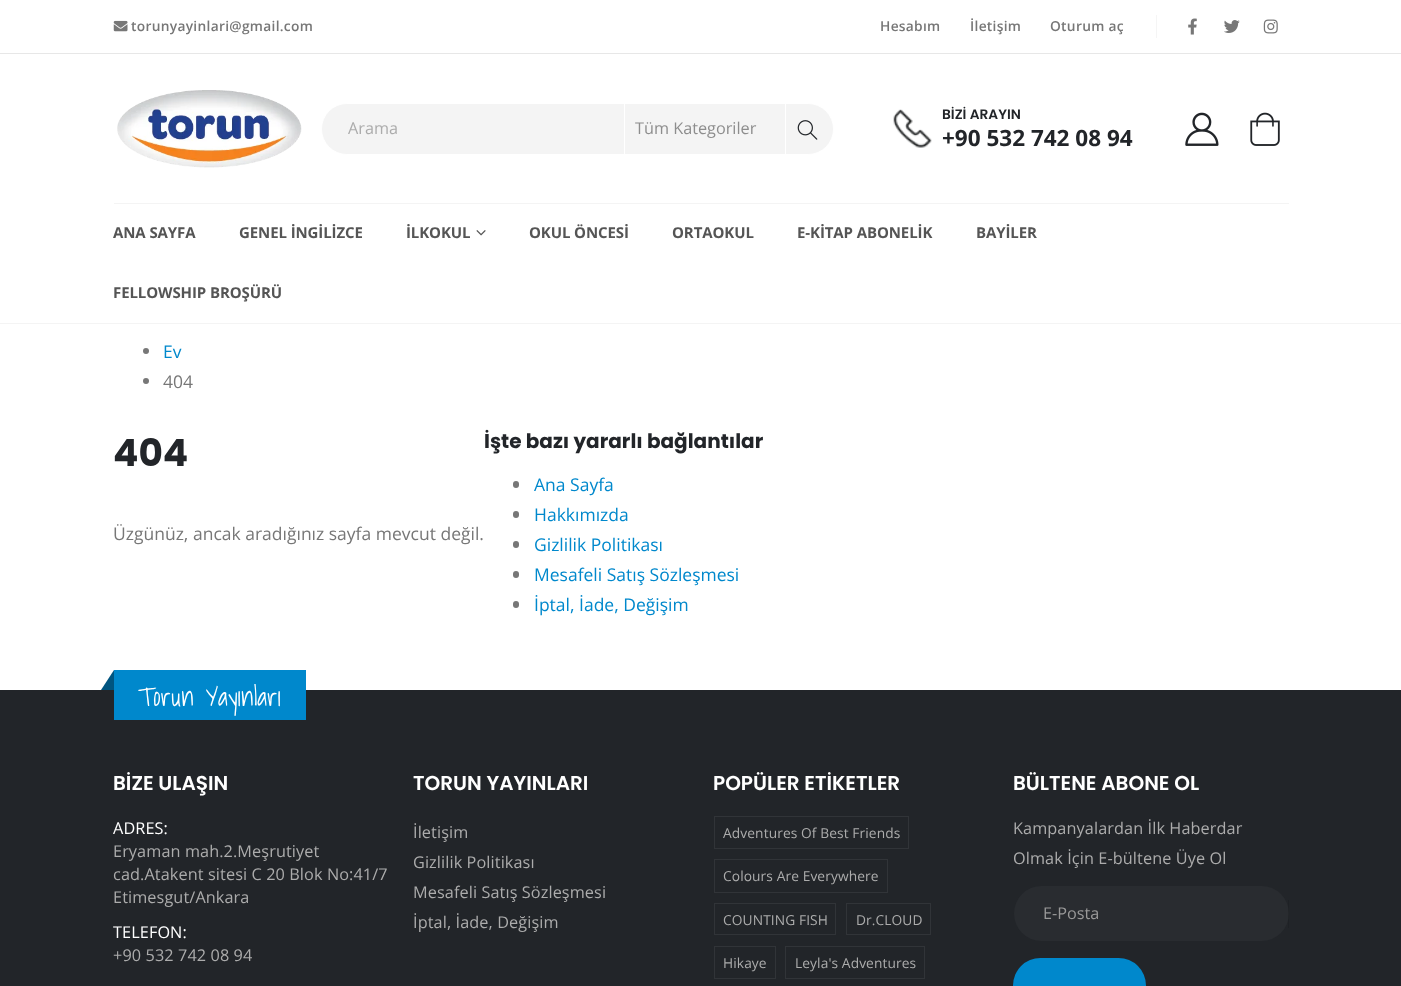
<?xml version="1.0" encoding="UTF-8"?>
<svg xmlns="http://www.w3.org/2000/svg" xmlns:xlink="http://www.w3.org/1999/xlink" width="1401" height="986">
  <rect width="100%" height="100%" fill="#ffffff" />
  <rect y="323" width="1401" height="1" fill="#f4f4f4" />
  <image x="113" y="20" width="15" height="12" xlink:href="image1.png" />
  <rect x="1156" y="15" width="1" height="23" fill="#f5f5f5" />
  <image x="1188" y="18" width="9" height="17" xlink:href="image2.png" />
  <image x="1224" y="20" width="16" height="13" xlink:href="image3.png" />
  <image x="1263" y="19" width="15" height="15" xlink:href="image4.png" />
  <rect y="53" width="1401" height="1" fill="#e7e7e7" />
  <image x="117" y="90" width="185" height="78" xlink:href="image5.png" />
  <rect x="321.5" y="103.5" width="512" height="51" rx="25.5" fill="#f4f4f4" stroke="#ffffff" />
  <rect x="785" y="104" width="1" height="50" fill="#ffffff" />
  <rect x="624" y="104" width="1" height="50" fill="#ffffff" />
  <image x="797" y="120" width="21" height="20" xlink:href="image6.png" />
  <image x="893" y="109" width="39" height="39" xlink:href="image7.png" />
  <image x="1185" y="112" width="34" height="34" xlink:href="image8.png" />
  <image x="1250" y="112" width="30" height="34" xlink:href="image9.png" />
  <rect x="114" y="203" width="1175" height="1" fill="#f4f4f4" />
  <image x="476" y="230" width="10" height="6" xlink:href="image10.png" />
  <circle cx="146" cy="351" r="3" fill="#777777" />
  <circle cx="146" cy="381" r="3" fill="#777777" />
  <rect x="513" y="481" width="6" height="7" rx="3" fill="#777777" />
  <rect x="513" y="511" width="6" height="7" rx="3" fill="#777777" />
  <rect x="513" y="541" width="6" height="7" rx="3" fill="#777777" />
  <rect x="513" y="571" width="6" height="7" rx="3" fill="#777777" />
  <rect x="513" y="601" width="6" height="7" rx="3" fill="#777777" />
  <rect y="690" width="1401" height="296" fill="#222529" />
  <rect x="114" y="670" width="192" height="50" fill="#0088cc" />
  <path d="M 114 670 v 20 h -13 z" fill="#005580" />
  <rect x="714.5" y="816.5" width="194" height="32" fill="none" stroke="#313438" />
  <rect x="714.5" y="859.5" width="173" height="33" fill="none" stroke="#313438" />
  <rect x="714.5" y="903.5" width="121" height="31" fill="none" stroke="#313438" />
  <rect x="846.5" y="903.5" width="84" height="31" fill="none" stroke="#313438" />
  <rect x="714.5" y="946.5" width="61" height="32" fill="none" stroke="#313438" />
  <rect x="785.5" y="946.5" width="139" height="32" fill="none" stroke="#313438" />
  <rect x="1014" y="886" width="275" height="55" rx="27.5" fill="#292c30" />
  <rect x="1288" y="900" width="1" height="28" fill="#000000" fill-opacity="0.09" />
  <rect x="1013" y="958" width="133" height="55" rx="27.5" fill="#0088cc" />
  <text x="131" y="31" style="font-family: Open Sans; font-size: 13.75px; font-weight: 600; letter-spacing: 0.3px; fill: #777777">torunyayinlari@gmail.com</text>
  <text x="880" y="31" style="font-family: Open Sans; font-size: 13.75px; font-weight: 600; letter-spacing: 0.3px; fill: #777777">Hesabım</text>
  <text x="970" y="31" style="font-family: Open Sans; font-size: 13.75px; font-weight: 600; letter-spacing: 0.3px; fill: #777777">İletişim</text>
  <text x="1050" y="31" style="font-family: Open Sans; font-size: 13.75px; font-weight: 600; letter-spacing: 0.3px; fill: #777777">Oturum aç</text>
  <text x="348" y="134" style="font-family: Open Sans; font-size: 16.25px; fill: #acacac">Arama</text>
  <text x="635" y="134" style="font-family: Open Sans; font-size: 16.25px; fill: #8d8d8d">Tüm Kategoriler</text>
  <text x="942" y="119" style="font-family: Poppins; font-size: 13.75px; font-weight: 600; fill: #222529">BİZİ ARAYIN</text>
  <text x="942" y="146" style="font-family: Open Sans; font-size: 22.5px; font-weight: bold; fill: #222529">+90 532 742 08 94</text>
  <text x="113" y="238" style="font-family: Open Sans; font-size: 15px; font-weight: bold; letter-spacing: -0.1px; fill: #555555">ANA SAYFA</text>
  <text x="239" y="238" style="font-family: Open Sans; font-size: 15px; font-weight: bold; letter-spacing: -0.1px; fill: #555555">GENEL İNGİLİZCE</text>
  <text x="406" y="238" style="font-family: Open Sans; font-size: 15px; font-weight: bold; letter-spacing: -0.1px; fill: #555555">İLKOKUL</text>
  <text x="529" y="238" style="font-family: Open Sans; font-size: 15px; font-weight: bold; letter-spacing: -0.1px; fill: #555555">OKUL ÖNCESİ</text>
  <text x="672" y="238" style="font-family: Open Sans; font-size: 15px; font-weight: bold; letter-spacing: -0.1px; fill: #555555">ORTAOKUL</text>
  <text x="797" y="238" style="font-family: Open Sans; font-size: 15px; font-weight: bold; letter-spacing: -0.1px; fill: #555555">E-KİTAP ABONELİK</text>
  <text x="976" y="238" style="font-family: Open Sans; font-size: 15px; font-weight: bold; letter-spacing: -0.1px; fill: #555555">BAYİLER</text>
  <text x="113" y="298" style="font-family: Open Sans; font-size: 15px; font-weight: bold; letter-spacing: -0.1px; fill: #555555">FELLOWSHIP BROŞÜRÜ</text>
  <text x="163" y="358" style="font-family: Open Sans; font-size: 17.5px; fill: #0088cc">Ev</text>
  <text x="163" y="388" style="font-family: Open Sans; font-size: 17.5px; fill: #777777">404</text>
  <text x="113" y="466" style="font-family: Poppins; font-size: 37.5px; font-weight: bold; fill: #222529">404</text>
  <text x="113" y="540" style="font-family: Open Sans; font-size: 17.5px; fill: #777777">Üzgünüz, ancak aradığınız sayfa mevcut değil.</text>
  <text x="484" y="448" style="font-family: Poppins; font-size: 20px; font-weight: bold; fill: #222529">İşte bazı yararlı bağlantılar</text>
  <text x="534" y="491" style="font-family: Open Sans; font-size: 17.5px; fill: #0088cc">Ana Sayfa</text>
  <text x="534" y="521" style="font-family: Open Sans; font-size: 17.5px; fill: #0088cc">Hakkımızda</text>
  <text x="534" y="551" style="font-family: Open Sans; font-size: 17.5px; fill: #0088cc">Gizlilik Politikası</text>
  <text x="534" y="581" style="font-family: Open Sans; font-size: 17.5px; fill: #0088cc">Mesafeli Satış Sözleşmesi</text>
  <text x="534" y="611" style="font-family: Open Sans; font-size: 17.5px; fill: #0088cc">İptal, İade, Değişim</text>
  <text x="138" y="706" style="font-family: Shadows Into Light; font-size: 26px; letter-spacing: 0.1px; fill: #ffffff">Torun Yayınları</text>
  <text x="113" y="790" style="font-family: Poppins; font-size: 20px; font-weight: 600; fill: #ffffff">BİZE ULAŞIN</text>
  <text x="113" y="834" style="font-family: Open Sans; font-size: 16.25px; letter-spacing: 0.1px; fill: #ffffff">ADRES:</text>
  <text x="113" y="857" style="font-family: Open Sans; font-size: 16.25px; letter-spacing: 0.1px; fill: #acacac">Eryaman mah.2.Meşrutiyet</text>
  <text x="113" y="880" style="font-family: Open Sans; font-size: 16.25px; letter-spacing: 0.1px; fill: #acacac">cad.Atakent sitesi C 20 Blok No:41/7</text>
  <text x="113" y="903" style="font-family: Open Sans; font-size: 16.25px; letter-spacing: 0.1px; fill: #acacac">Etimesgut/Ankara</text>
  <text x="113" y="938" style="font-family: Open Sans; font-size: 16.25px; letter-spacing: 0.1px; fill: #ffffff">TELEFON:</text>
  <text x="113" y="961" style="font-family: Open Sans; font-size: 16.25px; letter-spacing: 0.1px; fill: #acacac">+90 532 742 08 94</text>
  <text x="413" y="790" style="font-family: Poppins; font-size: 20px; font-weight: 600; fill: #ffffff">TORUN YAYINLARI</text>
  <text x="413" y="838" style="font-family: Open Sans; font-size: 16.25px; letter-spacing: 0.1px; fill: #acacac">İletişim</text>
  <text x="413" y="868" style="font-family: Open Sans; font-size: 16.25px; letter-spacing: 0.1px; fill: #acacac">Gizlilik Politikası</text>
  <text x="413" y="898" style="font-family: Open Sans; font-size: 16.25px; letter-spacing: 0.1px; fill: #acacac">Mesafeli Satış Sözleşmesi</text>
  <text x="413" y="928" style="font-family: Open Sans; font-size: 16.25px; letter-spacing: 0.1px; fill: #acacac">İptal, İade, Değişim</text>
  <text x="713" y="790" style="font-family: Poppins; font-size: 20px; font-weight: 600; fill: #ffffff">POPÜLER ETİKETLER</text>
  <text x="723" y="838" style="font-family: Open Sans; font-size: 13.75px; letter-spacing: 0.1px; fill: #acacac">Adventures Of Best Friends</text>
  <text x="723" y="881" style="font-family: Open Sans; font-size: 13.75px; letter-spacing: 0.1px; fill: #acacac">Colours Are Everywhere</text>
  <text x="723" y="925" style="font-family: Open Sans; font-size: 13.75px; letter-spacing: 0.1px; fill: #acacac">COUNTING FISH</text>
  <text x="856" y="925" style="font-family: Open Sans; font-size: 13.75px; letter-spacing: 0.1px; fill: #acacac">Dr.CLOUD</text>
  <text x="723" y="968" style="font-family: Open Sans; font-size: 13.75px; letter-spacing: 0.1px; fill: #acacac">Hikaye</text>
  <text x="795" y="968" style="font-family: Open Sans; font-size: 13.75px; letter-spacing: 0.1px; fill: #acacac">Leyla's Adventures</text>
  <text x="1013" y="790" style="font-family: Poppins; font-size: 20px; font-weight: 600; fill: #ffffff">BÜLTENE ABONE OL</text>
  <text x="1013" y="834" style="font-family: Open Sans; font-size: 16.25px; letter-spacing: 0.1px; fill: #acacac">Kampanyalardan İlk Haberdar</text>
  <text x="1013" y="864" style="font-family: Open Sans; font-size: 16.25px; letter-spacing: 0.1px; fill: #acacac">Olmak İçin E-bültene Üye Ol</text>
  <text x="1043" y="919" style="font-family: Open Sans; font-size: 16.25px; fill: #999999">E-Posta</text>
</svg>
